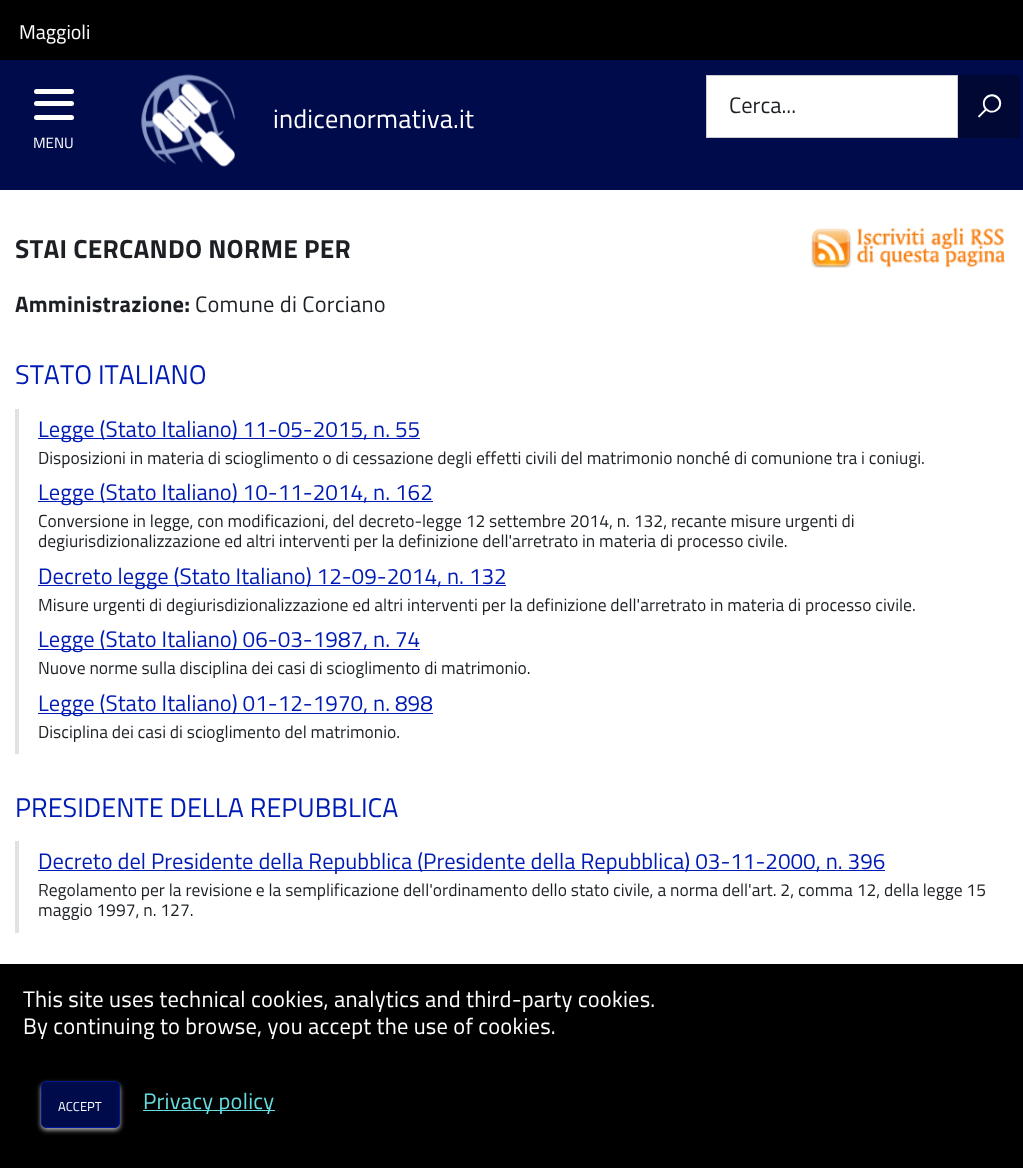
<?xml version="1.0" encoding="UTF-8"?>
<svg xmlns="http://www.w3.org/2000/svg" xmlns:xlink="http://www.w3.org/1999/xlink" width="1023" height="1168">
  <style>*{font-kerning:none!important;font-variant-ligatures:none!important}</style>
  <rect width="100%" height="100%" fill="#ffffff" />
  <rect width="1023" height="60" fill="#000000" />
  <rect y="60" width="1023" height="130" fill="#000b4c" />
  <image x="141" y="74" width="94" height="93" xlink:href="image1.png" />
  <rect x="706.5" y="75.5" width="251" height="62" fill="#ffffff" stroke="#cccccc" />
  <rect x="958" y="75" width="62" height="63" fill="#000833" />
  <rect x="34" y="101" width="40" height="5" rx="2.5" fill="#ffffff" />
  <rect x="34" y="89" width="40" height="5" rx="2.5" fill="#ffffff" />
  <rect x="34" y="115" width="40" height="5" rx="2.5" fill="#ffffff" />
  <image x="811" y="227" width="195" height="41" xlink:href="image2.png" />
  <rect x="15" y="409" width="4" height="345" fill="#e2e2e2" />
  <rect x="38" y="438" width="382" height="1" fill="#001bb3" />
  <rect x="38" y="501" width="395" height="1" fill="#001bb3" />
  <rect x="38" y="585" width="468" height="1" fill="#001bb3" />
  <rect x="38" y="649" width="382" height="1" fill="#001bb3" />
  <rect x="38" y="713" width="395" height="1" fill="#001bb3" />
  <rect x="15" y="841" width="4" height="92" fill="#e2e2e2" />
  <rect x="38" y="870" width="847" height="1" fill="#001bb3" />
  <rect y="964" width="1023" height="204" fill="#000000" />
  <rect x="41" y="1084" width="79" height="46" rx="5" fill="#bdbdbd" filter="blur(2.5px)" />
  <rect x="41.5" y="1081.5" width="78" height="46" rx="4.5" fill="#000b4c" stroke="#001799" />
  <rect x="143" y="1110" width="132" height="1" fill="#65dcdf" />
  <text x="19" y="39" style="font-family: Titillium Web; font-size: 20px; fill: #ffffff">Maggioli</text>
  <text x="273" y="128" style="font-family: Titillium Web; font-size: 26.25px; letter-spacing: 0.2px; fill: #ffffff">indicenormativa.it</text>
  <text x="978" y="116" style="font-family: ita; font-size: 22.5px; font-weight: bold; fill: #ffffff">🔍</text>
  <text x="729" y="113" style="font-family: Titillium Web; font-size: 22.5px; fill: #1c2024">Cerca...</text>
  <text x="33" y="148" style="font-family: Titillium Web; font-size: 15px; fill: #ffffff">MENU</text>
  <text x="15" y="258" style="font-family: Titillium Web; font-size: 26.25px; font-weight: bold; letter-spacing: 0.22px; fill: #1c2024">STAI CERCANDO NORME PER</text>
  <text x="15" y="312" style="font-family: Titillium Web; font-size: 22.5px; font-weight: bold; letter-spacing: 0.22px; fill: #1c2024">Amministrazione:</text>
  <text x="195" y="312" style="font-family: Titillium Web; font-size: 22.5px; letter-spacing: 0.22px; fill: #1c2024">Comune di Corciano</text>
  <text x="15" y="384" style="font-family: Titillium Web; font-size: 27px; fill: #001bb3">STATO ITALIANO</text>
  <text x="38" y="437" style="font-family: Titillium Web; font-size: 22.5px; fill: #001bb3">Legge (Stato Italiano) 11-05-2015, n. 55</text>
  <text x="38" y="464" style="font-family: Titillium Web; font-size: 17.5px; fill: #1c2024">Disposizioni in materia di scioglimento o di cessazione degli effetti civili del matrimonio nonché di comunione tra i coniugi.</text>
  <text x="38" y="500" style="font-family: Titillium Web; font-size: 22.5px; fill: #001bb3">Legge (Stato Italiano) 10-11-2014, n. 162</text>
  <text x="38" y="527" style="font-family: Titillium Web; font-size: 17.5px; fill: #1c2024">Conversione in legge, con modificazioni, del decreto-legge 12 settembre 2014, n. 132, recante misure urgenti di</text>
  <text x="38" y="547" style="font-family: Titillium Web; font-size: 17.5px; fill: #1c2024">degiurisdizionalizzazione ed altri interventi per la definizione dell'arretrato in materia di processo civile.</text>
  <text x="38" y="584" style="font-family: Titillium Web; font-size: 22.5px; fill: #001bb3">Decreto legge (Stato Italiano) 12-09-2014, n. 132</text>
  <text x="38" y="611" style="font-family: Titillium Web; font-size: 17.5px; fill: #1c2024">Misure urgenti di degiurisdizionalizzazione ed altri interventi per la definizione dell'arretrato in materia di processo civile.</text>
  <text x="38" y="647" style="font-family: Titillium Web; font-size: 22.5px; fill: #001bb3">Legge (Stato Italiano) 06-03-1987, n. 74</text>
  <text x="38" y="674" style="font-family: Titillium Web; font-size: 17.5px; fill: #1c2024">Nuove norme sulla disciplina dei casi di scioglimento di matrimonio.</text>
  <text x="38" y="711" style="font-family: Titillium Web; font-size: 22.5px; fill: #001bb3">Legge (Stato Italiano) 01-12-1970, n. 898</text>
  <text x="38" y="738" style="font-family: Titillium Web; font-size: 17.5px; fill: #1c2024">Disciplina dei casi di scioglimento del matrimonio.</text>
  <text x="15" y="817" style="font-family: Titillium Web; font-size: 27px; fill: #001bb3">PRESIDENTE DELLA REPUBBLICA</text>
  <text x="38" y="869" style="font-family: Titillium Web; font-size: 22.5px; fill: #001bb3">Decreto del Presidente della Repubblica (Presidente della Repubblica) 03-11-2000, n. 396</text>
  <text x="38" y="896" style="font-family: Titillium Web; font-size: 17.5px; fill: #1c2024">Regolamento per la revisione e la semplificazione dell'ordinamento dello stato civile, a norma dell'art. 2, comma 12, della legge 15</text>
  <text x="38" y="916" style="font-family: Titillium Web; font-size: 17.5px; fill: #1c2024">maggio 1997, n. 127.</text>
  <text x="23" y="1007" style="font-family: Titillium Web; font-size: 22.5px; letter-spacing: 0.22px; fill: #ffffff">This site uses technical cookies, analytics and third-party cookies.</text>
  <text x="23" y="1034" style="font-family: Titillium Web; font-size: 22.5px; letter-spacing: 0.22px; fill: #ffffff">By continuing to browse, you accept the use of cookies.</text>
  <text x="58" y="1111" style="font-family: Titillium Web; font-size: 13px; fill: #ffffff">ACCEPT</text>
  <text x="143" y="1109" style="font-family: Titillium Web; font-size: 22.5px; letter-spacing: 0.22px; fill: #65dcdf">Privacy policy</text>
</svg>
